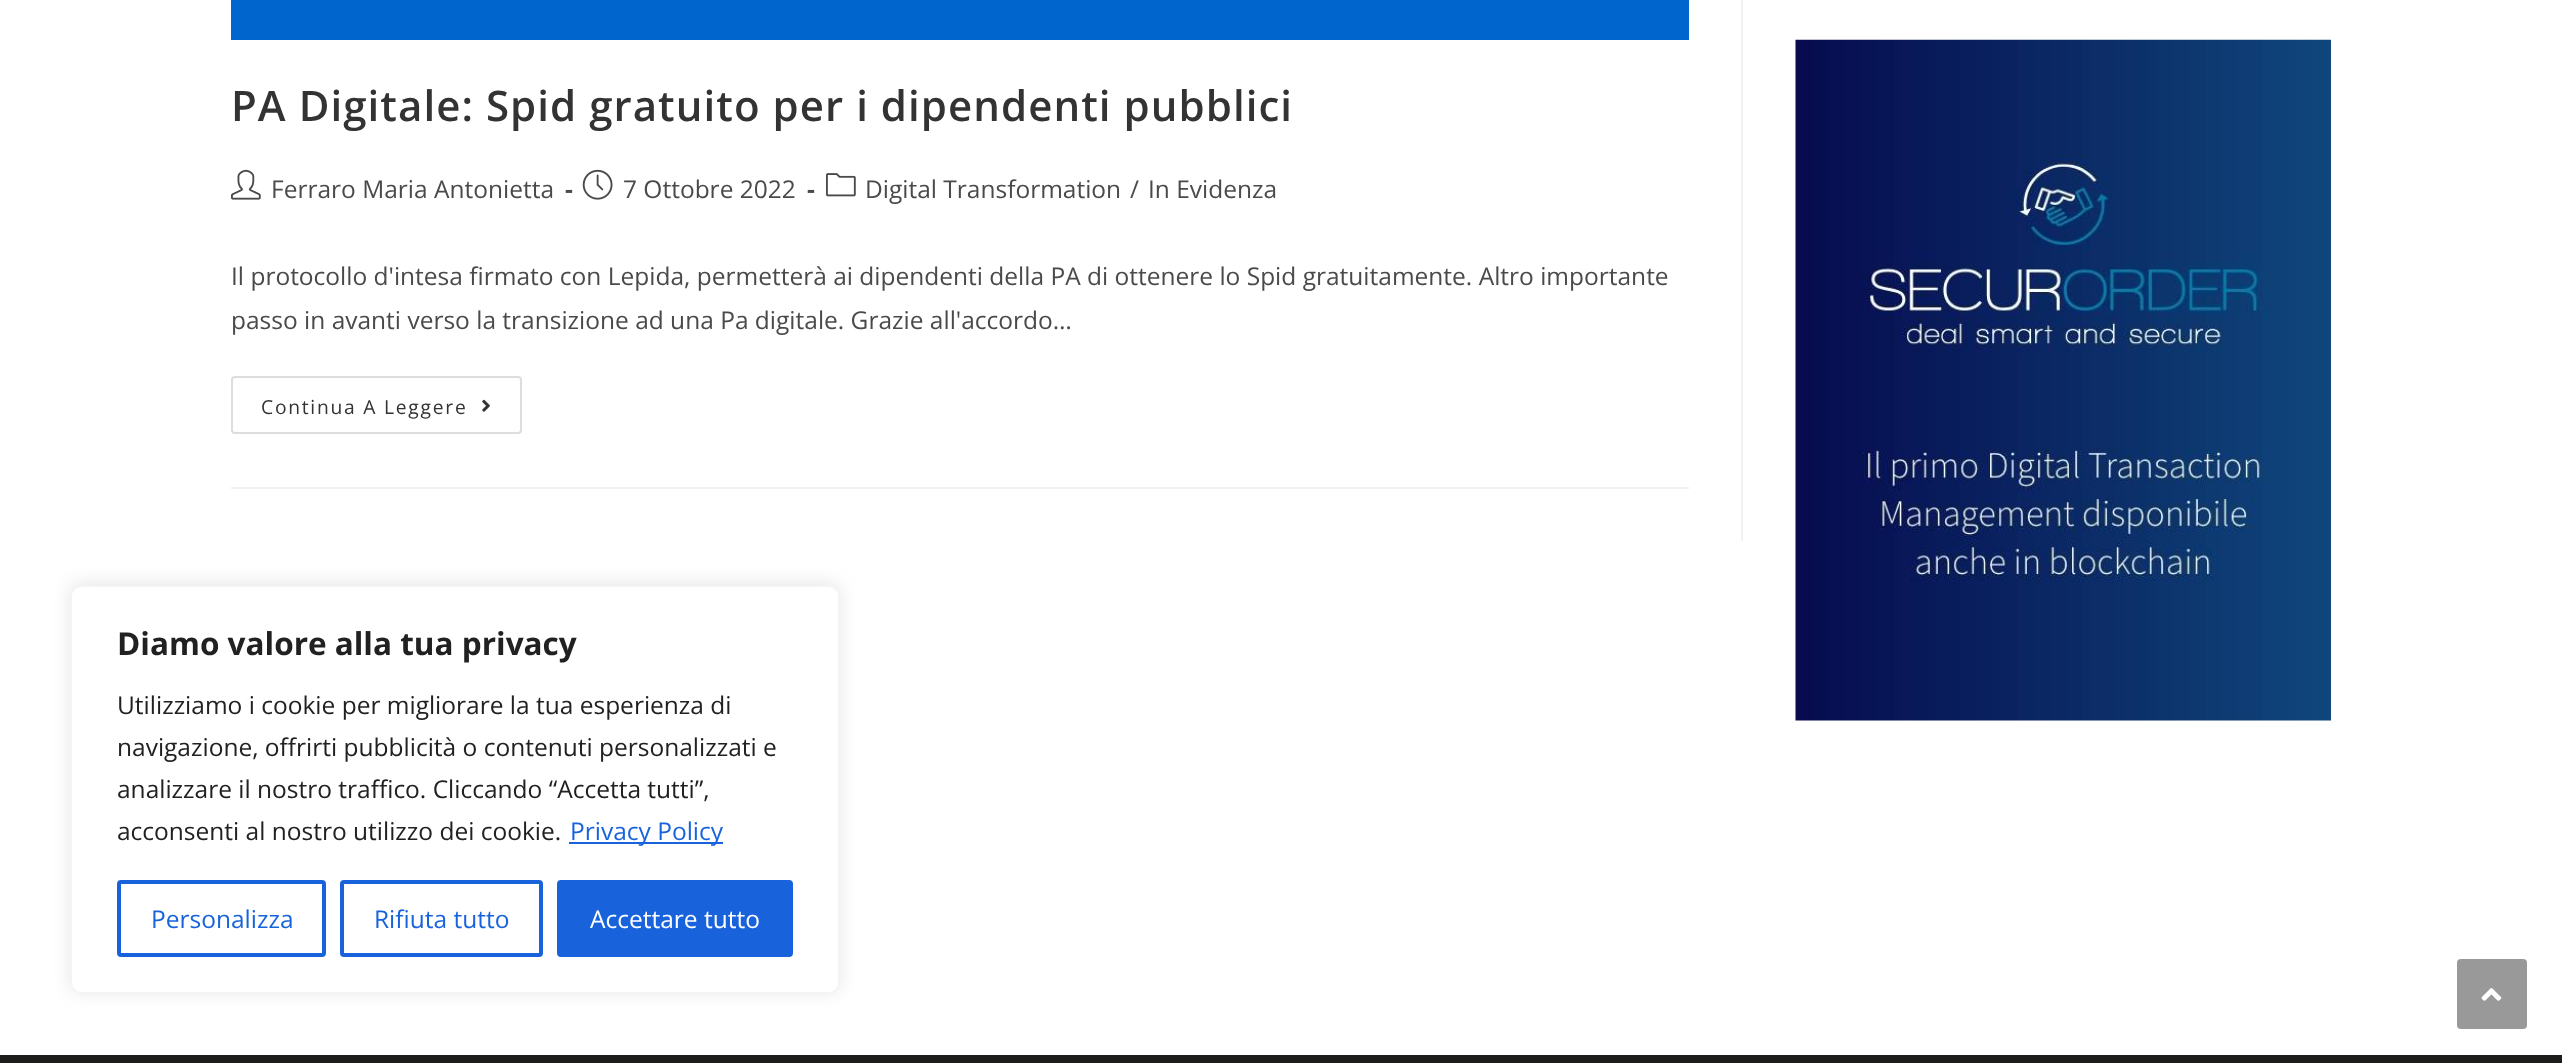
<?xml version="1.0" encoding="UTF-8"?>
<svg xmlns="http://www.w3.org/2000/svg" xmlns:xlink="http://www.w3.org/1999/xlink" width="2562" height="1063">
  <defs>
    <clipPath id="clip1"><path d="M 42 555 h 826 v 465 h -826 z m 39 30 h 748 c 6 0 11 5 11 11 v 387 c 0 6 -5 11 -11 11 h -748 c -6 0 -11 -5 -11 -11 v -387 c 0 -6 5 -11 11 -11 z" clip-rule="evenodd" /></clipPath>
  </defs>
  <rect width="100%" height="100%" fill="#ffffff" />
  <rect x="1741" width="2" height="541" fill="#f1f1f1" />
  <rect x="231" y="487" width="1458" height="2" fill="#f1f1f1" />
  <rect x="231" width="1458" height="40" fill="#0065cd" />
  <image x="231" y="169" width="30" height="31" xlink:href="image1.png" />
  <image x="582" y="169" width="31" height="31" xlink:href="image2.png" />
  <image x="826" y="173" width="30" height="24" xlink:href="image3.png" />
  <rect x="232" y="377" width="289" height="56" rx="3" fill="none" stroke="#dddddd" stroke-width="2" />
  <image x="482" y="399" width="8" height="13" xlink:href="image4.png" />
  <image x="1795" y="39" width="536" height="682" xlink:href="image5.png" />
  <rect y="1055" width="2562" height="8" fill="#1d1d1b" />
  <g clip-path="url(#clip1)">
    <rect x="70" y="583" width="770" height="409" rx="11" fill="#acabab" fill-opacity="0.3" filter="blur(9px)" />
  </g>
  <rect x="71" y="586" width="768" height="407" rx="10" fill="none" stroke="#f4f4f4" stroke-width="2" />
  <rect x="569" y="842" width="154" height="2" fill="#1863dc" />
  <rect x="119" y="882" width="205" height="73" rx="2" fill="none" stroke="#1863dc" stroke-width="4" />
  <rect x="342" y="882" width="199" height="73" rx="2" fill="none" stroke="#1863dc" stroke-width="4" />
  <rect x="559" y="882" width="232" height="73" rx="2" fill="#1863dc" stroke="#1863dc" stroke-width="4" />
  <rect x="2457" y="959" width="70" height="70" rx="4" fill="#999999" />
  <image x="2481" y="988" width="21" height="13" xlink:href="image6.png" />
  <text x="231" y="121" style="font-family: Open Sans; font-size: 42px; font-weight: 600; letter-spacing: 1.05px; fill: #333333">PA Digitale: Spid gratuito per i dipendenti pubblici</text>
  <text x="271" y="198" style="font-family: Open Sans; font-size: 24.5px; fill: #4a4a4a">Ferraro Maria Antonietta</text>
  <text x="565" y="198" style="font-family: Open Sans; font-size: 24.5px; font-weight: bold; fill: #4a4a4a">-</text>
  <text x="623" y="198" style="font-family: Open Sans; font-size: 24.5px; fill: #4a4a4a">7 Ottobre 2022</text>
  <text x="807" y="198" style="font-family: Open Sans; font-size: 24.5px; font-weight: bold; fill: #4a4a4a">-</text>
  <text x="865" y="198" style="font-family: Open Sans; font-size: 24.5px; fill: #4a4a4a">Digital Transformation</text>
  <text x="1130" y="198" style="font-family: Open Sans; font-size: 24.5px; fill: #4a4a4a">/</text>
  <text x="1148" y="198" style="font-family: Open Sans; font-size: 24.5px; fill: #4a4a4a">In Evidenza</text>
  <text x="231" y="285" style="font-family: Open Sans; font-size: 24.5px; fill: #4a4a4a">Il protocollo d'intesa firmato con Lepida, permetterà ai dipendenti della PA di ottenere lo Spid gratuitamente. Altro importante</text>
  <text x="231" y="329" style="font-family: Open Sans; font-size: 24.5px; fill: #4a4a4a">passo in avanti verso la transizione ad una Pa digitale. Grazie all'accordo…</text>
  <text x="261" y="414" style="font-family: Open Sans; font-size: 19.25px; letter-spacing: 1.75px; fill: #333333">Continua A Leggere</text>
  <text x="117" y="655" style="font-family: Open Sans; font-size: 31.5px; font-weight: bold; fill: #212121">Diamo valore alla tua privacy</text>
  <text x="117" y="714" style="font-family: Open Sans; font-size: 24.5px; fill: #212121">Utilizziamo i cookie per migliorare la tua esperienza di</text>
  <text x="117" y="756" style="font-family: Open Sans; font-size: 24.5px; fill: #212121">navigazione, offrirti pubblicità o contenuti personalizzati e</text>
  <text x="117" y="798" style="font-family: Open Sans; font-size: 24.5px; fill: #212121">analizzare il nostro traffico. Cliccando “Accetta tutti”,</text>
  <text x="117" y="840" style="font-family: Open Sans; font-size: 24.5px; fill: #212121">acconsenti al nostro utilizzo dei cookie.</text>
  <text x="570" y="840" style="font-family: Open Sans; font-size: 24.5px; fill: #1863dc">Privacy Policy</text>
  <text x="151" y="928" style="font-family: Open Sans; font-size: 24.5px; fill: #1863dc">Personalizza</text>
  <text x="374" y="928" style="font-family: Open Sans; font-size: 24.5px; fill: #1863dc">Rifiuta tutto</text>
  <text x="590" y="928" style="font-family: Open Sans; font-size: 24.5px; fill: #ffffff">Accettare tutto</text>
</svg>
